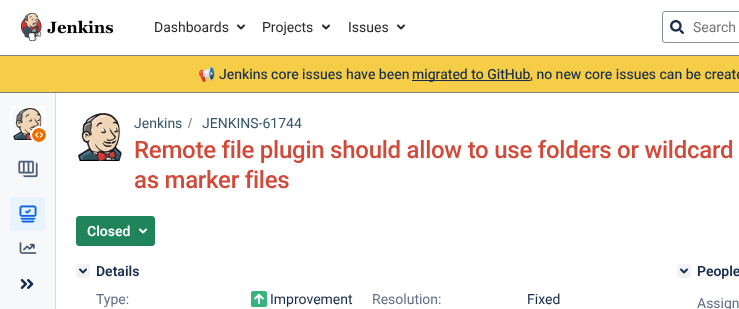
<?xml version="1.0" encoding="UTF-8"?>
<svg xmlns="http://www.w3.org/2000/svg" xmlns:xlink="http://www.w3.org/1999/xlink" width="739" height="309">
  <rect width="100%" height="100%" fill="#ffffff" />
  <rect y="55" width="739" height="1" fill="#7d7d7d" />
  <image x="20" y="12" width="94" height="30" xlink:href="image1.png" />
  <image x="237" y="24" width="8" height="6" xlink:href="image2.png" />
  <image x="322" y="24" width="8" height="6" xlink:href="image2.png" />
  <image x="397" y="24" width="8" height="6" xlink:href="image2.png" />
  <rect x="662.5" y="11.5" width="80" height="31" rx="2.5" fill="none" stroke="#8590a2" />
  <image x="670" y="20" width="14" height="14" xlink:href="image3.png" />
  <rect y="56" width="739" height="36" fill="#f5cd47" />
  <rect y="92" width="739" height="1" fill="#7d7d7d" />
  <rect x="412" y="80" width="118" height="1" fill="#172b4d" />
  <rect y="93" width="55" height="216" fill="#f7f8f9" />
  <rect x="55" y="93" width="1" height="216" fill="#d6d9df" />
  <rect x="11" y="107" width="34" height="34" rx="4" fill="none" stroke="#ffffff" stroke-width="2" />
  <image x="13" y="108" width="29" height="32" xlink:href="image4.png" />
  <circle cx="39" cy="135" r="9" fill="#ffffff" />
  <image x="32" y="128" width="14" height="14" xlink:href="image5.png" />
  <image x="18" y="160" width="20" height="18" xlink:href="image6.png" />
  <rect x="10" y="197" width="35" height="34" rx="3" fill="#e9f2ff" />
  <image x="19" y="205" width="18" height="18" xlink:href="image7.png" />
  <image x="19" y="242" width="18" height="12" xlink:href="image8.png" />
  <image x="20" y="279" width="14" height="10" xlink:href="image9.png" />
  <image x="78" y="113" width="44" height="48" xlink:href="image10.png" />
  <path d="M 189 128 l 3 -10 h -1 l -3 10 z" fill="#707070" />
  <rect x="76.5" y="216.5" width="78" height="29" rx="2.5" fill="#1f845a" stroke="#1f845a" />
  <image x="139" y="228" width="8" height="6" xlink:href="image11.png" />
  <rect x="76" y="264" width="14" height="14" rx="3" fill="#f0f2f4" />
  <image x="79" y="268" width="8" height="6" xlink:href="image12.png" />
  <image x="251" y="291" width="16" height="16" xlink:href="image13.png" />
  <rect x="677" y="264" width="14" height="14" rx="3" fill="#f0f2f4" />
  <image x="680" y="268" width="8" height="6" xlink:href="image12.png" />
  <text x="154" y="32" style="font-family: 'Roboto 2'; font-size: 14px; fill: #292929">Dashboards</text>
  <text x="262" y="32" style="font-family: 'Roboto 2'; font-size: 14px; fill: #292929">Projects</text>
  <text x="348" y="32" style="font-family: 'Roboto 2'; font-size: 14px; fill: #292929">Issues</text>
  <text x="693" y="32" style="font-family: 'Roboto 2'; font-size: 14px; fill: #757575">Search</text>
  <text x="198" y="79" style="font-family: Noto Color Emoji; font-size: 14px; fill: #172b4d">📢</text>
  <text x="219" y="79" style="font-family: Roboto; font-size: 14px; fill: #172b4d">Jenkins core issues have been</text>
  <text x="412" y="79" style="font-family: Roboto; font-size: 14px; fill: #172b4d">migrated to GitHub</text>
  <text x="530" y="79" style="font-family: Roboto; font-size: 14px; fill: #172b4d">, no new core issues can be create</text>
  <text x="134" y="128" style="font-family: 'Roboto 2'; font-size: 14px; fill: #355564">Jenkins</text>
  <text x="202" y="128" style="font-family: 'Roboto 2'; font-size: 14px; fill: #355564">JENKINS-61744</text>
  <text x="134" y="158" style="font-family: Roboto; font-size: 24px; font-weight: 500; letter-spacing: -0.25px; fill: #d24939">Remote file plugin should allow to use folders or wildcard</text>
  <text x="134" y="188" style="font-family: Roboto; font-size: 24px; font-weight: 500; letter-spacing: -0.25px; fill: #d24939">as marker files</text>
  <text x="87" y="236" style="font-family: Roboto; font-size: 14px; font-weight: 600; fill: #ffffff">Closed</text>
  <text x="96" y="276" style="font-family: Roboto; font-size: 14px; font-weight: 600; fill: #172b4d">Details</text>
  <text x="96" y="304" style="font-family: 'Roboto 2'; font-size: 14px; fill: #626f86">Type:</text>
  <text x="270" y="304" style="font-family: 'Roboto 2'; font-size: 14px; fill: #172b4d">Improvement</text>
  <text x="372" y="304" style="font-family: 'Roboto 2'; font-size: 14px; fill: #626f86">Resolution:</text>
  <text x="527" y="304" style="font-family: 'Roboto 2'; font-size: 14px; fill: #172b4d">Fixed</text>
  <text x="697" y="276" style="font-family: Roboto; font-size: 14px; font-weight: 600; fill: #172b4d">People</text>
  <text x="697" y="308" style="font-family: 'Roboto 2'; font-size: 14px; fill: #626f86">Assign</text>
</svg>
